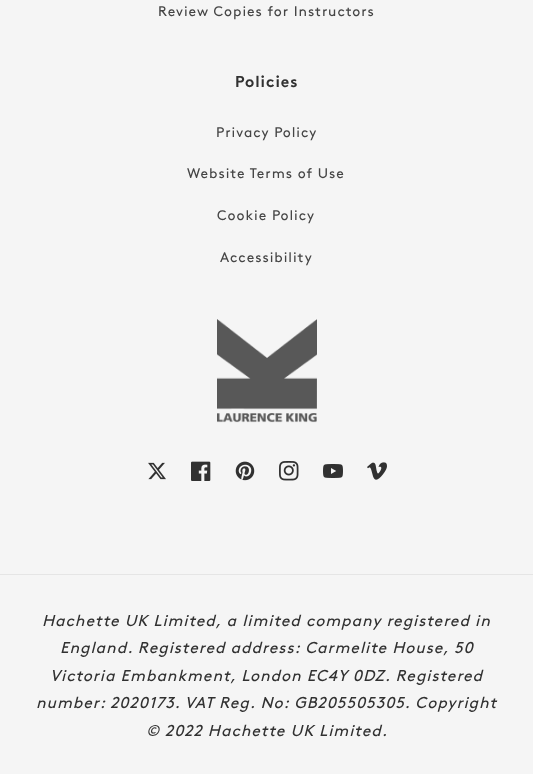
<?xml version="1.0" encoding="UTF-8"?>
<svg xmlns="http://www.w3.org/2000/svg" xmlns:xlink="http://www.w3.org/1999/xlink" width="533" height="774">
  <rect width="100%" height="100%" fill="#f5f5f5" />
  <image x="217" y="319" width="100" height="104" xlink:href="image1.png" />
  <image x="148" y="462" width="18" height="18" xlink:href="image2.png" />
  <image x="191" y="461" width="20" height="20" xlink:href="image3.png" />
  <image x="235" y="461" width="20" height="20" xlink:href="image4.png" />
  <image x="279" y="461" width="20" height="20" xlink:href="image5.png" />
  <image x="323" y="464" width="20" height="14" xlink:href="image6.png" />
  <image x="367" y="462" width="20" height="18" xlink:href="image7.png" />
  <rect y="574" width="533" height="1" fill="#e5e5e5" />
  <text x="158" y="16" style="font-family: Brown; font-size: 13.9px; letter-spacing: 0.95px; fill: #454545">Review Copies for Instructors</text>
  <text x="235" y="87" style="font-family: Brown; font-size: 15.75px; font-weight: bold; letter-spacing: 0.95px; fill: #313131">Policies</text>
  <text x="216" y="137" style="font-family: Brown; font-size: 13.9px; letter-spacing: 0.95px; fill: #454545">Privacy Policy</text>
  <text x="187" y="178" style="font-family: Brown; font-size: 13.9px; letter-spacing: 0.95px; fill: #454545">Website Terms of Use</text>
  <text x="217" y="220" style="font-family: Brown; font-size: 13.9px; letter-spacing: 0.95px; fill: #454545">Cookie Policy</text>
  <text x="220" y="262" style="font-family: Brown; font-size: 13.9px; letter-spacing: 0.95px; fill: #454545">Accessibility</text>
  <text x="42" y="626" style="font-family: Brown; font-size: 15.75px; font-style: italic; letter-spacing: 0.95px; fill: #313131">Hachette UK Limited, a limited company registered in</text>
  <text x="60" y="653" style="font-family: Brown; font-size: 15.75px; font-style: italic; letter-spacing: 0.95px; fill: #313131">England. Registered address: Carmelite House, 50</text>
  <text x="50" y="681" style="font-family: Brown; font-size: 15.75px; font-style: italic; letter-spacing: 0.95px; fill: #313131">Victoria Embankment, London EC4Y 0DZ. Registered</text>
  <text x="36" y="708" style="font-family: Brown; font-size: 15.75px; font-style: italic; letter-spacing: 0.95px; fill: #313131">number: 2020173. VAT Reg. No: GB205505305. Copyright</text>
  <text x="146" y="736" style="font-family: Brown; font-size: 15.75px; font-style: italic; letter-spacing: 0.95px; fill: #313131">© 2022 Hachette UK Limited.</text>
</svg>
